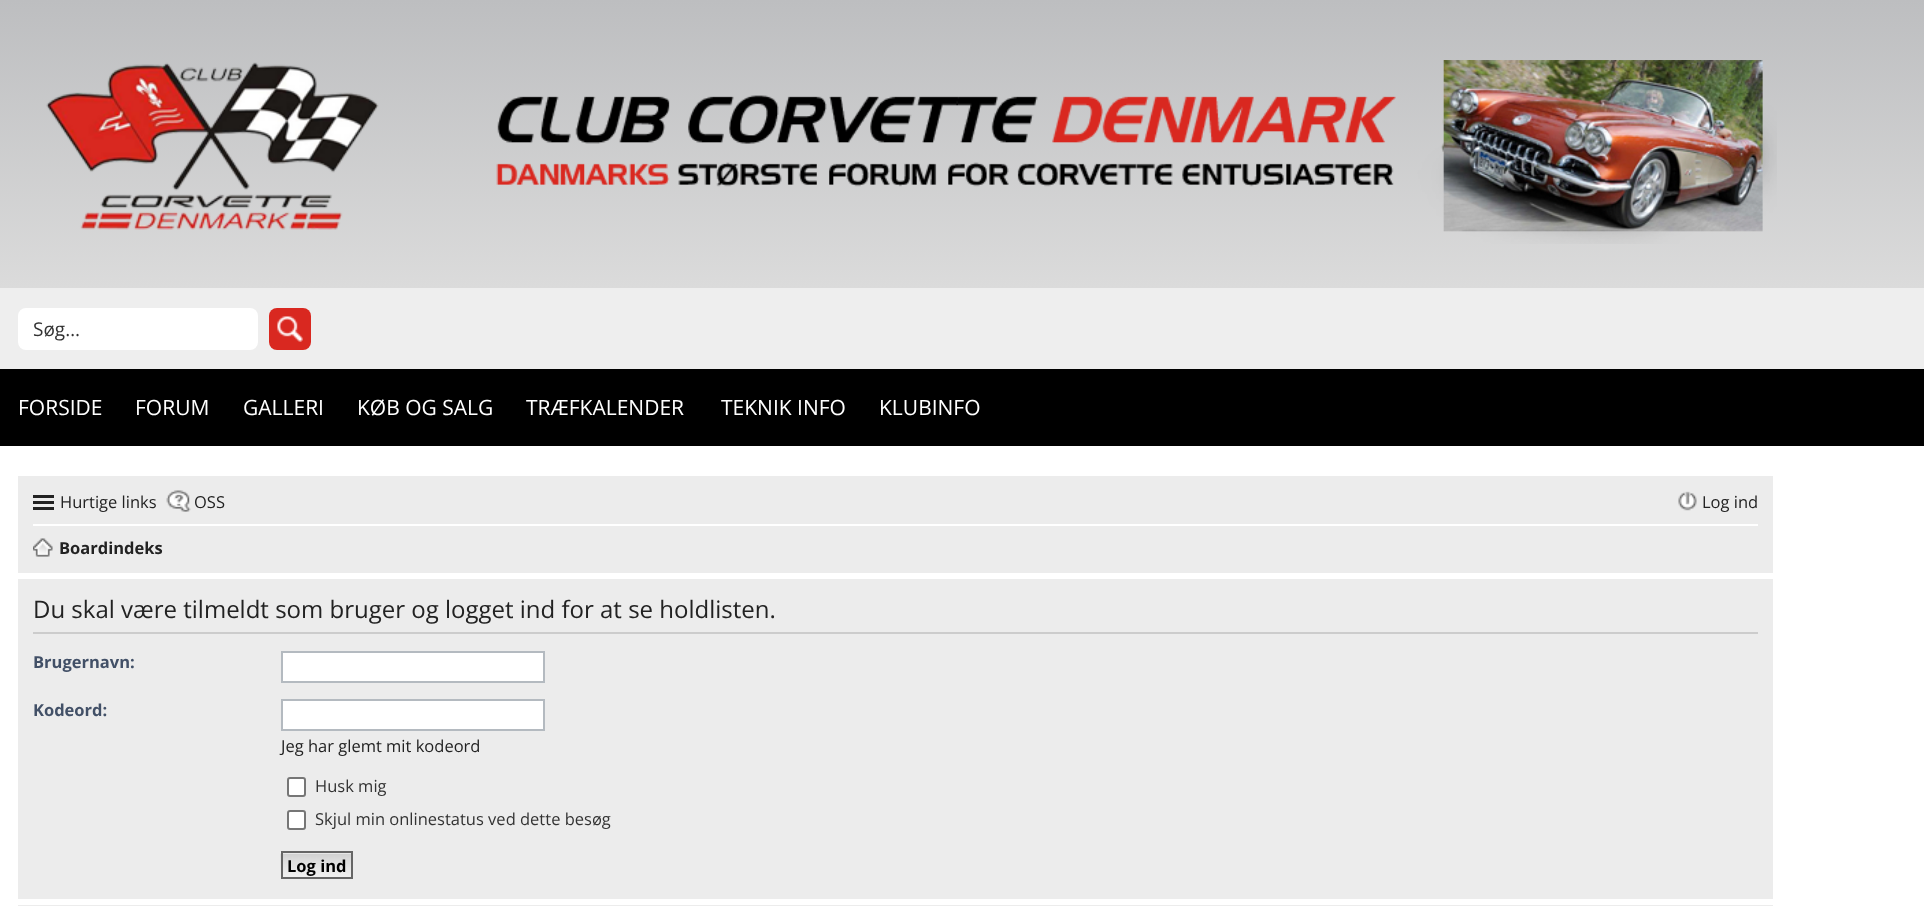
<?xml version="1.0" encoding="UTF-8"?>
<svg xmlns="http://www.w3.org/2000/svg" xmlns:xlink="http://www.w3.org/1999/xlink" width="1924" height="906">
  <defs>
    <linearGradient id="g1" gradientUnits="userSpaceOnUse" x1="962" y1="0" x2="962" y2="288"><stop offset="0" stop-color="#bdbec0" /><stop offset="1" stop-color="#dbdbdb" /></linearGradient>
  </defs>
  <rect width="100%" height="100%" fill="#ffffff" />
  <rect width="1924" height="288" fill="url(#g1)" />
  <image x="46" y="62" width="333" height="168" xlink:href="image1.png" />
  <image x="496" y="60" width="1281" height="184" xlink:href="image2.png" />
  <rect y="288" width="1924" height="81" fill="#eeeeee" />
  <rect x="18" y="308" width="240" height="42" rx="8" fill="#ffffff" />
  <rect x="269" y="308" width="42" height="42" rx="8" fill="#d92820" />
  <image x="277" y="316" width="26" height="26" xlink:href="image3.png" />
  <rect y="369" width="1924" height="77" fill="#000000" />
  <rect x="18" y="476" width="1755" height="97" fill="#ececec" />
  <rect x="33" y="495" width="21" height="3" fill="#222222" />
  <rect x="33" y="501" width="21" height="3" fill="#222222" />
  <rect x="33" y="507" width="21" height="3" fill="#222222" />
  <image x="166" y="490" width="25" height="22" xlink:href="image4.png" />
  <image x="1678" y="491" width="19" height="20" xlink:href="image5.png" />
  <rect x="33" y="524" width="1725" height="2" fill="#ffffff" />
  <image x="33" y="538" width="20" height="19" xlink:href="image6.png" />
  <rect x="18" y="579" width="1755" height="320" fill="#ececec" />
  <rect x="33" y="632" width="1725" height="2" fill="#cccccc" />
  <rect x="282" y="652" width="262" height="30" fill="#ffffff" stroke="#b4bac0" stroke-width="2" />
  <rect x="282" y="700" width="262" height="30" fill="#ffffff" stroke="#b4bac0" stroke-width="2" />
  <rect x="288" y="778" width="17" height="18" rx="2" fill="#ffffff" stroke="#767676" stroke-width="2" />
  <rect x="288" y="811" width="17" height="18" rx="2" fill="#ffffff" stroke="#767676" stroke-width="2" />
  <image x="280" y="852" width="71" height="27" xlink:href="image7.png" />
  <rect x="282" y="852" width="70" height="26" fill="none" stroke="#666666" stroke-width="2" />
  <rect x="18" y="905" width="1755" height="1" fill="#ececec" />
  <text x="33" y="336" style="font-family: Open Sans; font-size: 19px; fill: #333333">Søg…</text>
  <text x="18" y="415" style="font-family: Open Sans; font-size: 21px; fill: #ffffff">FORSIDE</text>
  <text x="135" y="415" style="font-family: Open Sans; font-size: 21px; fill: #ffffff">FORUM</text>
  <text x="243" y="415" style="font-family: Open Sans; font-size: 21px; fill: #ffffff">GALLERI</text>
  <text x="357" y="415" style="font-family: Open Sans; font-size: 21px; fill: #ffffff">KØB OG SALG</text>
  <text x="526" y="415" style="font-family: Open Sans; font-size: 21px; fill: #ffffff">TRÆFKALENDER</text>
  <text x="721" y="415" style="font-family: Open Sans; font-size: 21px; fill: #ffffff">TEKNIK INFO</text>
  <text x="879" y="415" style="font-family: Open Sans; font-size: 21px; fill: #ffffff">KLUBINFO</text>
  <text x="60" y="508" style="font-family: Open Sans; font-size: 16.5px; fill: #222222">Hurtige links</text>
  <text x="194" y="508" style="font-family: Open Sans; font-size: 16.5px; fill: #222222">OSS</text>
  <text x="1702" y="508" style="font-family: Open Sans; font-size: 16.5px; fill: #222222">Log ind</text>
  <text x="59" y="554" style="font-family: Open Sans; font-size: 16.5px; font-weight: bold; fill: #222222">Boardindeks</text>
  <text x="33" y="618" style="font-family: Open Sans; font-size: 24px; fill: #222222">Du skal være tilmeldt som bruger og logget ind for at se holdlisten.</text>
  <text x="33" y="668" style="font-family: Open Sans; font-size: 16.5px; font-weight: bold; fill: #425067">Brugernavn:</text>
  <text x="33" y="716" style="font-family: Open Sans; font-size: 16.5px; font-weight: bold; fill: #425067">Kodeord:</text>
  <text x="281" y="752" style="font-family: Open Sans; font-size: 16.5px; fill: #222222">Jeg har glemt mit kodeord</text>
  <text x="315" y="792" style="font-family: Open Sans; font-size: 16.5px; fill: #333333">Husk mig</text>
  <text x="315" y="825" style="font-family: Open Sans; font-size: 16.5px; fill: #333333">Skjul min onlinestatus ved dette besøg</text>
  <text x="287" y="872" style="font-family: Open Sans; font-size: 16.5px; font-weight: bold; fill: #000000">Log ind</text>
</svg>
